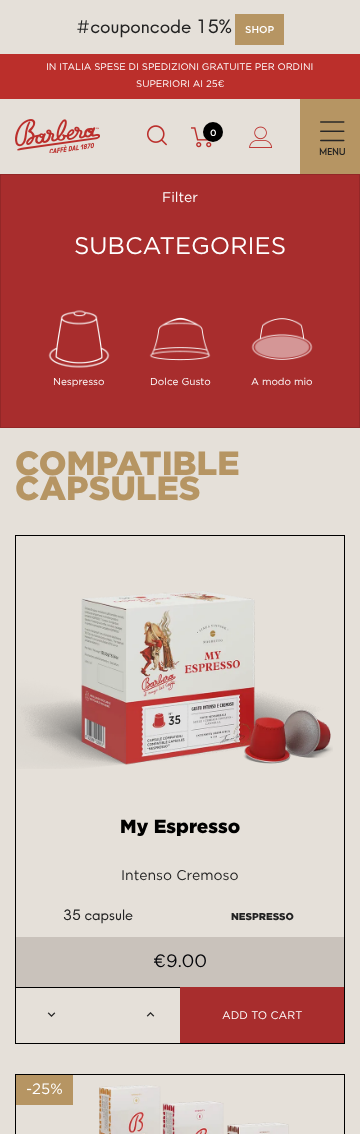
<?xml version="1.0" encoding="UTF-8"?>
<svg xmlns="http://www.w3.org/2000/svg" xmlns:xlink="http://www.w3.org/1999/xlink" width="360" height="1134">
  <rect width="100%" height="100%" fill="#e5e0d9" />
  <rect x="235" y="14" width="49" height="31" fill="#b69563" />
  <rect y="54" width="360" height="45" fill="#bb2f2b" />
  <image x="15" y="119" width="85" height="34" xlink:href="image1.png" />
  <image x="147" y="125" width="20" height="21" xlink:href="image2.png" />
  <image x="191" y="127" width="21" height="21" xlink:href="image3.png" />
  <circle cx="213" cy="132" r="10" fill="#000000" />
  <image x="249" y="126" width="23" height="22" xlink:href="image4.png" />
  <rect x="300" y="99" width="60" height="75" fill="#b69563" />
  <image x="320" y="121" width="25" height="21" xlink:href="image5.png" />
  <rect x="0.5" y="174.5" width="359" height="253" fill="#a82d2d" stroke="#932727" />
  <image x="48" y="310" width="62" height="58" xlink:href="image6.png" />
  <image x="149" y="317" width="62" height="44" xlink:href="image7.png" />
  <image x="251" y="318" width="62" height="42" xlink:href="image8.png" />
  <rect x="15.5" y="535.5" width="329" height="508" fill="none" stroke="#000000" />
  <image x="16" y="591" width="317" height="178" xlink:href="image9.png" />
  <rect x="16" y="937" width="328" height="50" fill="#c9c2bb" />
  <rect x="16" y="987" width="164" height="1" fill="#000000" />
  <image x="47" y="1012" width="9" height="5" xlink:href="image10.png" />
  <image x="146" y="1012" width="9" height="5" xlink:href="image11.png" />
  <rect x="180" y="987" width="164" height="56" fill="#a82d2d" />
  <rect x="15.5" y="1074.5" width="329" height="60" fill="none" stroke="#000000" />
  <rect x="16" y="1075" width="57" height="30" fill="#b69563" />
  <image x="99" y="1085" width="190" height="49" xlink:href="image12.png" />
  <text x="76" y="33" style="font-family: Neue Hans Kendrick; font-size: 18px; fill: #222222">#couponcode 15%</text>
  <text x="245" y="33" style="font-family: Gotham; font-size: 10px; font-weight: 500; fill: #ffffff">SHOP</text>
  <text x="46" y="70" style="font-family: Gotham; font-size: 9.6px; fill: #ffffff">IN ITALIA SPESE DI SPEDIZIONI GRATUITE PER ORDINI</text>
  <text x="136" y="87" style="font-family: Gotham; font-size: 9.6px; fill: #ffffff">SUPERIORI AI 25€</text>
  <text x="210" y="136" style="font-family: Gotham; font-size: 9px; font-weight: 500; fill: #ffffff">0</text>
  <text x="319" y="155" style="font-family: Neue Hans Kendrick; font-size: 9px; font-weight: bold; fill: #222222">MENU</text>
  <text x="162" y="202" style="font-family: Gotham; font-size: 14px; fill: #ffffff">Filter</text>
  <text x="74" y="254" style="font-family: Gotham; font-size: 24px; fill: #ffffff">SUBCATEGORIES</text>
  <text x="53" y="385" style="font-family: Gotham; font-size: 10px; fill: #ffffff">Nespresso</text>
  <text x="150" y="385" style="font-family: Gotham; font-size: 10px; fill: #ffffff">Dolce Gusto</text>
  <text x="251" y="385" style="font-family: Gotham; font-size: 10px; fill: #ffffff">A modo mio</text>
  <text x="15" y="475" style="font-family: Gotham; font-size: 33.5px; font-weight: 900; fill: #b69563">COMPATIBLE</text>
  <text x="15" y="500" style="font-family: Gotham; font-size: 33.5px; font-weight: 900; fill: #b69563">CAPSULES</text>
  <text x="120" y="833" style="font-family: Gotham; font-size: 19px; font-weight: 900; fill: #000000">My Espresso</text>
  <text x="121" y="880" style="font-family: Gotham; font-size: 14px; fill: #222222">Intenso Cremoso</text>
  <text x="63" y="920" style="font-family: Neue Hans Kendrick; font-size: 14px; fill: #222222">35 capsule</text>
  <text x="231" y="920" style="font-family: Gotham; font-size: 10px; font-weight: 900; fill: #222222">NESPRESSO</text>
  <text x="153" y="967" style="font-family: Gotham; font-size: 18px; fill: #05060a">€9.00</text>
  <text x="222" y="1019" style="font-family: Gotham; font-size: 11px; fill: #ffffff">ADD TO CART</text>
  <text x="26" y="1094" style="font-family: Gotham; font-size: 15px; fill: #ffffff">-25%</text>
</svg>
